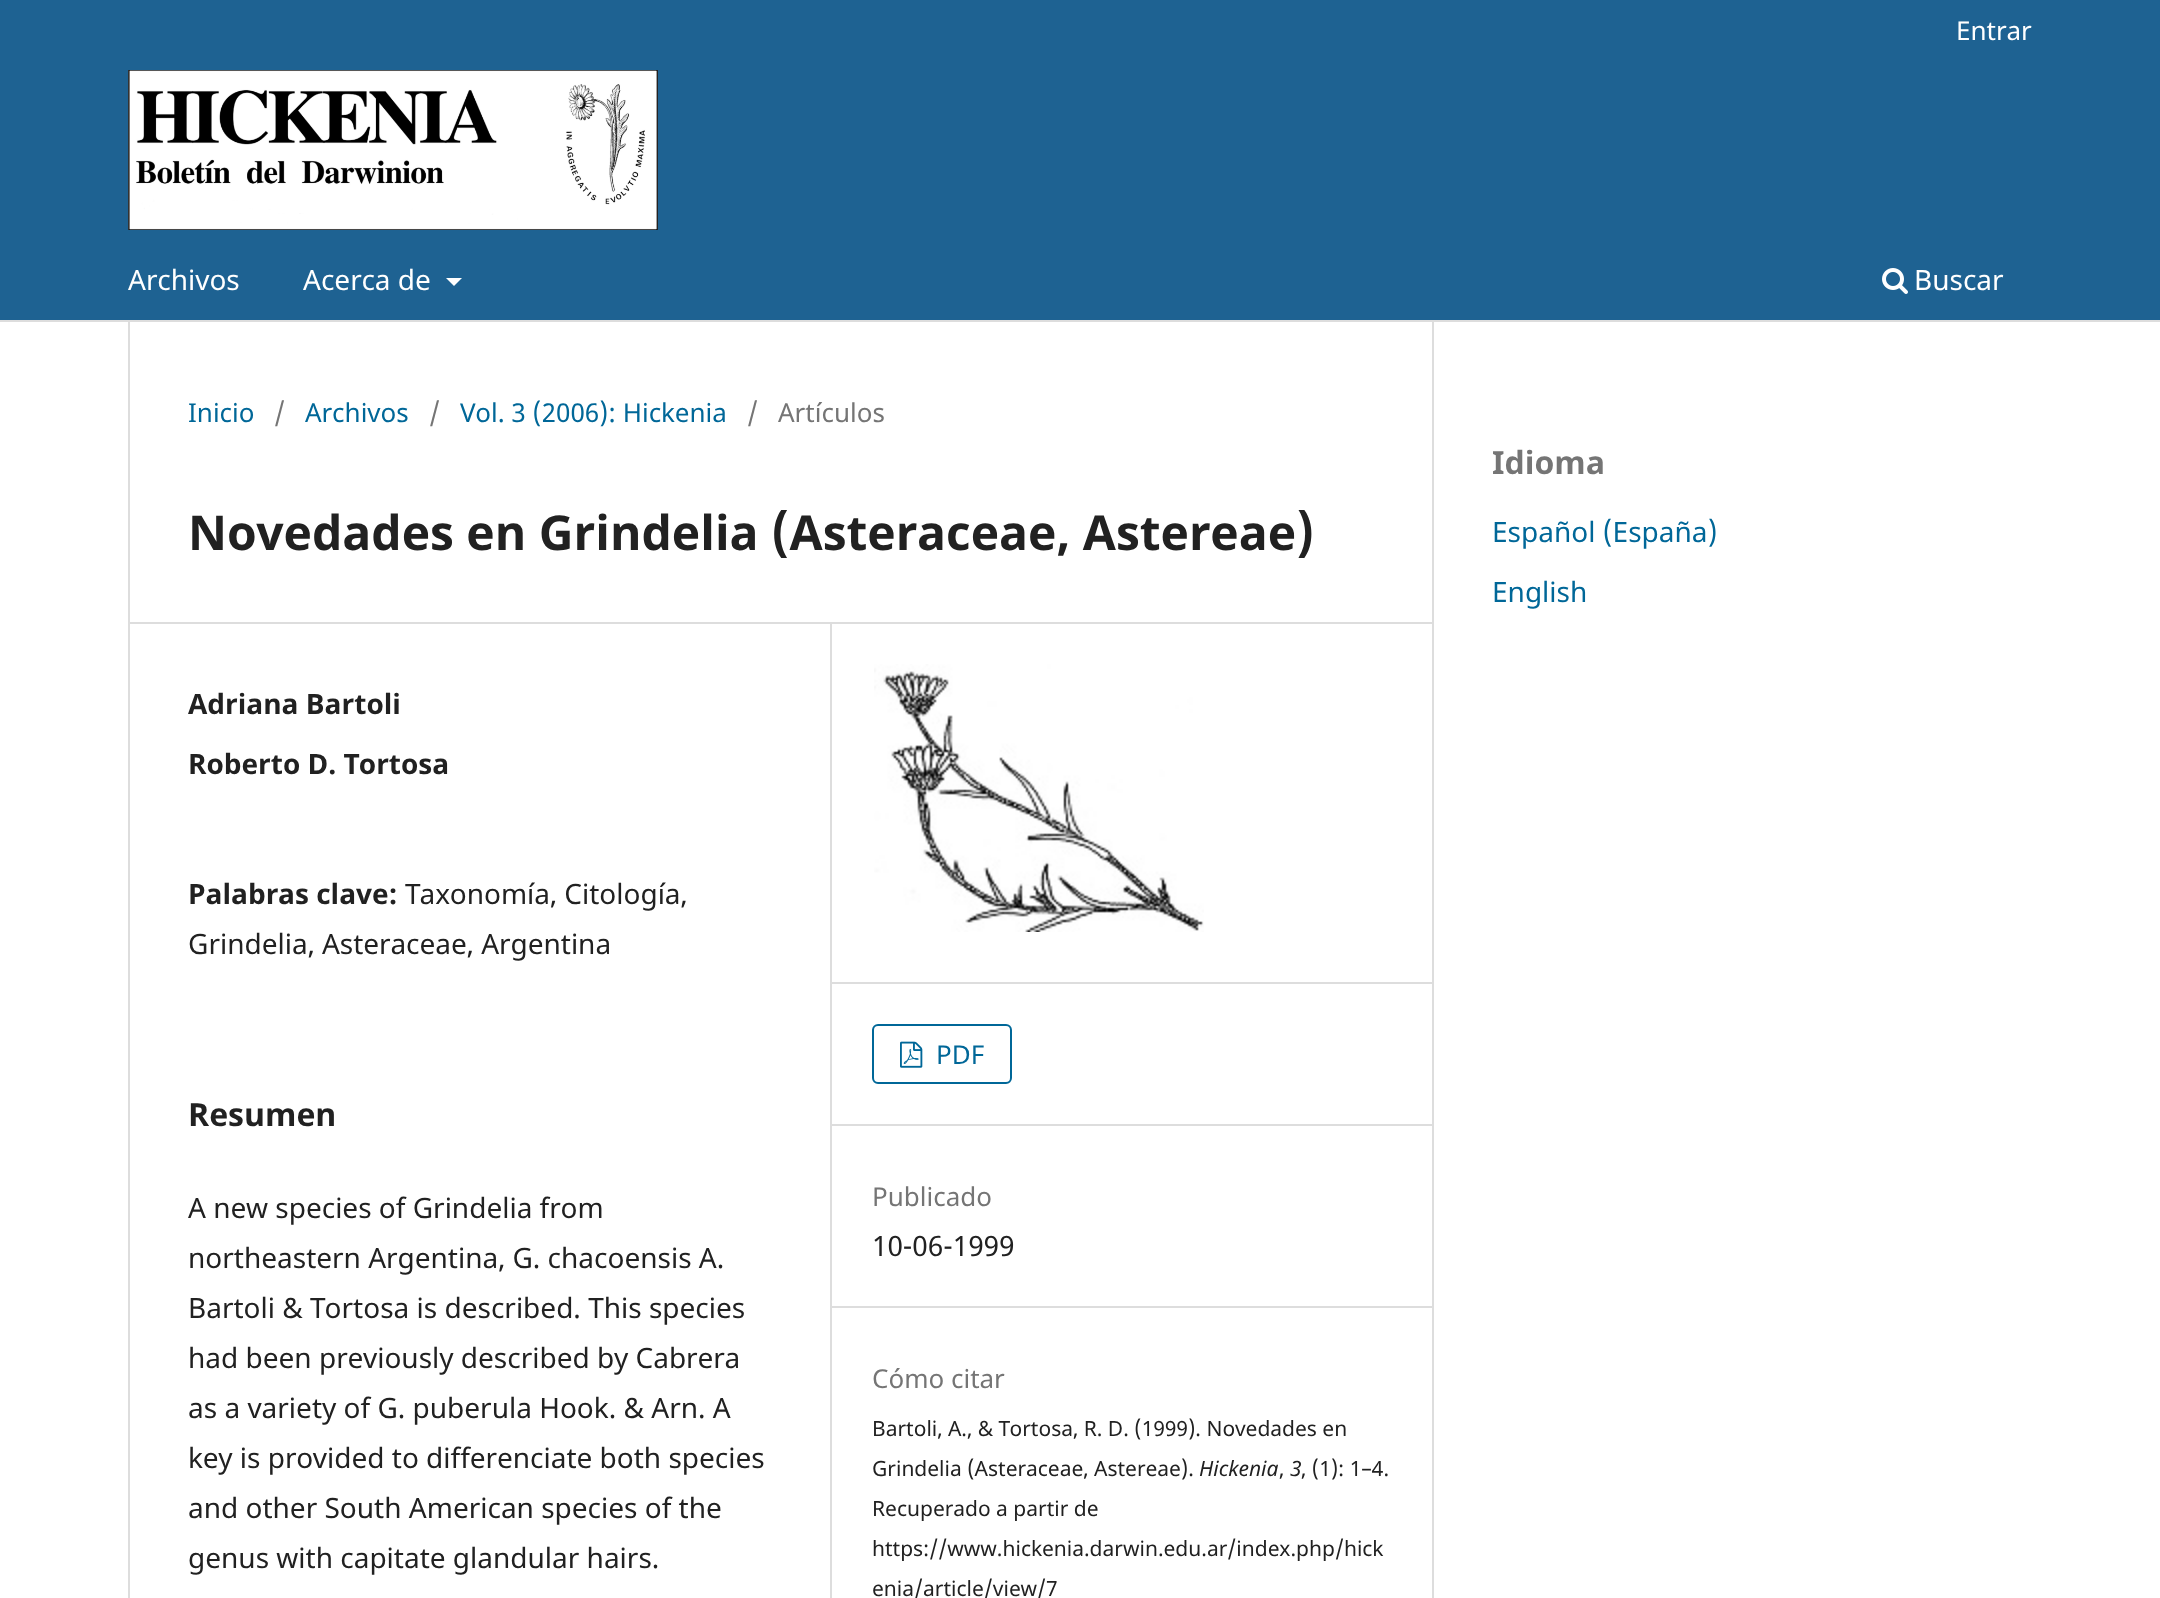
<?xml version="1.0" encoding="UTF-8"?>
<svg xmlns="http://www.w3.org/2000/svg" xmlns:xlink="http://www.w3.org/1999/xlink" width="2160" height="1598">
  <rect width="100%" height="100%" fill="#ffffff" />
  <rect width="2160" height="320" fill="#1e6292" />
  <rect y="320" width="2160" height="2" fill="#dddddd" />
  <path d="M 446 278 h 16 l -8 8 z" fill="#ffffff" />
  <image x="1882" y="268" width="26" height="26" xlink:href="image1.png" />
  <image x="128" y="70" width="530" height="160" xlink:href="image2.png" />
  <rect x="128" y="622" width="1304" height="2" fill="#dddddd" />
  <rect x="128" y="322" width="2" height="1276" fill="#dddddd" />
  <rect x="830" y="624" width="2" height="974" fill="#dddddd" />
  <rect x="832" y="982" width="600" height="2" fill="#dddddd" />
  <image x="874" y="664" width="330" height="268" xlink:href="image3.png" />
  <rect x="832" y="1124" width="600" height="2" fill="#dddddd" />
  <rect x="873" y="1025" width="138" height="58" rx="5" fill="none" stroke="#006798" stroke-width="2" />
  <image x="900" y="1041" width="23" height="27" xlink:href="image4.png" />
  <rect x="832" y="1306" width="600" height="2" fill="#dddddd" />
  <rect x="1432" y="322" width="2" height="1276" fill="#dddddd" />
  <text x="1956" y="40" style="font-family: Noto Sans; font-size: 26px; fill: #ffffff">Entrar</text>
  <text x="128" y="290" style="font-family: Noto Sans; font-size: 28px; fill: #ffffff">Archivos</text>
  <text x="303" y="290" style="font-family: Noto Sans; font-size: 28px; fill: #ffffff">Acerca de</text>
  <text x="1914" y="290" style="font-family: Noto Sans; font-size: 28px; fill: #ffffff">Buscar</text>
  <text x="188" y="422" style="font-family: Noto Sans; font-size: 26px; fill: #006798">Inicio</text>
  <text x="274" y="422" style="font-family: Noto Sans; font-size: 26px; fill: #757575">/</text>
  <text x="305" y="422" style="font-family: Noto Sans; font-size: 26px; fill: #006798">Archivos</text>
  <text x="429" y="422" style="font-family: Noto Sans; font-size: 26px; fill: #757575">/</text>
  <text x="460" y="422" style="font-family: Noto Sans; font-size: 26px; fill: #006798">Vol. 3 (2006): Hickenia</text>
  <text x="747" y="422" style="font-family: Noto Sans; font-size: 26px; fill: #757575">/</text>
  <text x="778" y="422" style="font-family: Noto Sans; font-size: 26px; fill: #757575">Artículos</text>
  <text x="188" y="550" style="font-family: Noto Sans; font-size: 48px; font-weight: bold; fill: #212121">Novedades en Grindelia (Asteraceae, Astereae)</text>
  <text x="188" y="714" style="font-family: Noto Sans; font-size: 28px; font-weight: bold; fill: #212121">Adriana Bartoli</text>
  <text x="188" y="774" style="font-family: Noto Sans; font-size: 28px; font-weight: bold; fill: #212121">Roberto D. Tortosa</text>
  <text x="188" y="904" style="font-family: Noto Sans; font-size: 28px; font-weight: bold; fill: #212121">Palabras clave:</text>
  <text x="405" y="904" style="font-family: Noto Sans; font-size: 28px; fill: #212121">Taxonomía, Citología,</text>
  <text x="188" y="954" style="font-family: Noto Sans; font-size: 28px; fill: #212121">Grindelia, Asteraceae, Argentina</text>
  <text x="188" y="1126" style="font-family: Noto Sans; font-size: 32px; font-weight: bold; fill: #212121">Resumen</text>
  <text x="188" y="1218" style="font-family: Noto Sans; font-size: 28px; fill: #212121">A new species of Grindelia from</text>
  <text x="188" y="1268" style="font-family: Noto Sans; font-size: 28px; fill: #212121">northeastern Argentina, G. chacoensis A.</text>
  <text x="188" y="1318" style="font-family: Noto Sans; font-size: 28px; fill: #212121">Bartoli &amp; Tortosa is described. This species</text>
  <text x="188" y="1368" style="font-family: Noto Sans; font-size: 28px; fill: #212121">had been previously described by Cabrera</text>
  <text x="188" y="1418" style="font-family: Noto Sans; font-size: 28px; fill: #212121">as a variety of G. puberula Hook. &amp; Arn. A</text>
  <text x="188" y="1468" style="font-family: Noto Sans; font-size: 28px; fill: #212121">key is provided to differenciate both species</text>
  <text x="188" y="1518" style="font-family: Noto Sans; font-size: 28px; fill: #212121">and other South American species of the</text>
  <text x="188" y="1568" style="font-family: Noto Sans; font-size: 28px; fill: #212121">genus with capitate glandular hairs.</text>
  <text x="936" y="1064" style="font-family: Noto Sans; font-size: 26px; fill: #006798">PDF</text>
  <text x="872" y="1206" style="font-family: Noto Sans; font-size: 26px; fill: #757575">Publicado</text>
  <text x="872" y="1256" style="font-family: Noto Sans; font-size: 28px; fill: #212121">10-06-1999</text>
  <text x="872" y="1388" style="font-family: Noto Sans; font-size: 26px; fill: #757575">Cómo citar</text>
  <text x="872" y="1436" style="font-family: Noto Sans; font-size: 21px; fill: #212121">Bartoli, A., &amp; Tortosa, R. D. (1999). Novedades en</text>
  <text x="872" y="1476" style="font-family: Noto Sans; font-size: 21px; fill: #212121">Grindelia (Asteraceae, Astereae).</text>
  <text x="1199" y="1476" style="font-family: Noto Sans; font-size: 21px; font-style: italic; fill: #212121">Hickenia</text>
  <text x="1279" y="1476" style="font-family: Noto Sans; font-size: 21px; fill: #212121">,</text>
  <text x="1290" y="1476" style="font-family: Noto Sans; font-size: 21px; font-style: italic; fill: #212121">3</text>
  <text x="1301" y="1476" style="font-family: Noto Sans; font-size: 21px; fill: #212121">, (1): 1–4.</text>
  <text x="872" y="1516" style="font-family: Noto Sans; font-size: 21px; fill: #212121">Recuperado a partir de</text>
  <text x="872" y="1556" style="font-family: Noto Sans; font-size: 21px; fill: #212121">https://www.hickenia.darwin.edu.ar/index.php/hick</text>
  <text x="872" y="1596" style="font-family: Noto Sans; font-size: 21px; fill: #212121">enia/article/view/7</text>
  <text x="1492" y="474" style="font-family: Noto Sans; font-size: 32px; font-weight: bold; fill: #757575">Idioma</text>
  <text x="1492" y="542" style="font-family: Noto Sans; font-size: 28px; fill: #006798">Español (España)</text>
  <text x="1492" y="602" style="font-family: Noto Sans; font-size: 28px; fill: #006798">English</text>
</svg>
